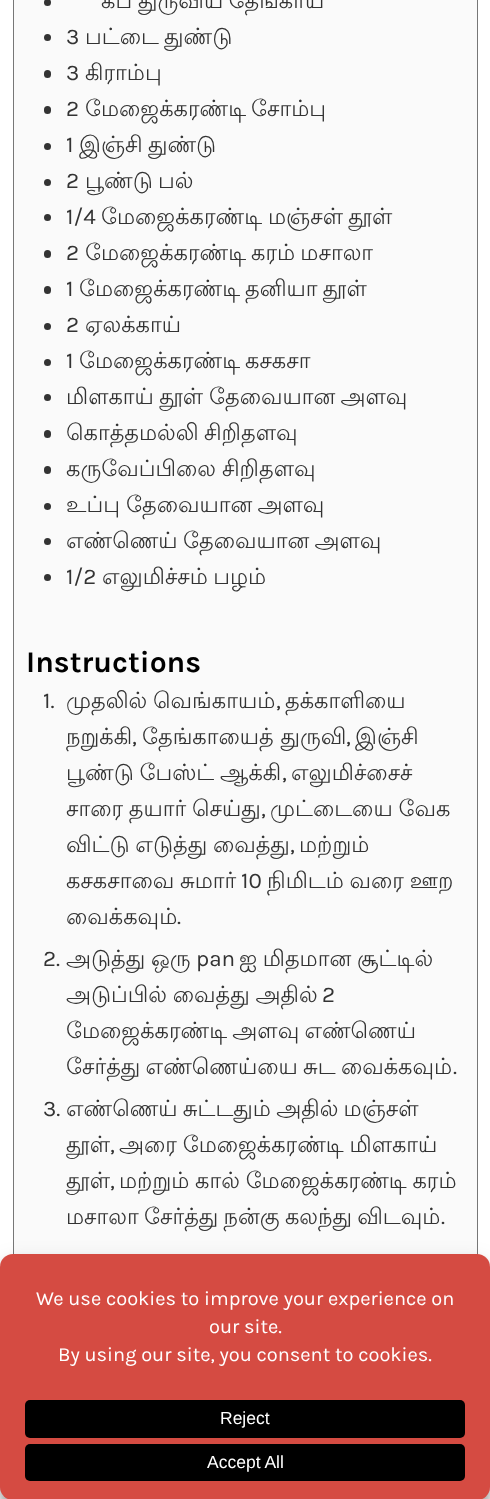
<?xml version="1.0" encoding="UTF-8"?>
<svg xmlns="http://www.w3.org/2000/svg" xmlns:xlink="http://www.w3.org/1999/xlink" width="490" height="1499">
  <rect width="100%" height="100%" fill="#ffffff" />
  <rect x="14" width="463" height="1254" fill="#fafafa" />
  <rect x="13.5" y="-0.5" width="464" height="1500" fill="none" stroke="#777777" />
  <circle cx="47.5" cy="2.5" r="3.5" fill="#333333" />
  <circle cx="47.5" cy="37.5" r="3.5" fill="#333333" />
  <rect x="44" y="70" width="7" height="8" rx="3.5" fill="#333333" />
  <rect x="44" y="106" width="7" height="8" rx="3.5" fill="#333333" />
  <circle cx="47.5" cy="146.5" r="3.5" fill="#333333" />
  <circle cx="47.5" cy="182.5" r="3.5" fill="#333333" />
  <circle cx="47.5" cy="217.5" r="3.5" fill="#333333" />
  <rect x="44" y="250" width="7" height="8" rx="3.5" fill="#333333" />
  <rect x="44" y="286" width="7" height="8" rx="3.5" fill="#333333" />
  <circle cx="47.5" cy="326.5" r="3.5" fill="#333333" />
  <circle cx="47.5" cy="362.5" r="3.5" fill="#333333" />
  <circle cx="47.5" cy="397.5" r="3.5" fill="#333333" />
  <rect x="44" y="430" width="7" height="8" rx="3.5" fill="#333333" />
  <rect x="44" y="466" width="7" height="8" rx="3.5" fill="#333333" />
  <circle cx="47.5" cy="506.5" r="3.5" fill="#333333" />
  <circle cx="47.5" cy="541.5" r="3.5" fill="#333333" />
  <circle cx="47.5" cy="577.5" r="3.5" fill="#333333" />
  <rect y="1261" width="490" height="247" rx="13" fill="#000000" fill-opacity="0.23" filter="blur(4px)" />
  <rect y="1266" width="490" height="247" rx="13" fill="#000000" fill-opacity="0.19" filter="blur(12.5px)" />
  <rect y="1254" width="490" height="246" rx="13" fill="#d54b42" />
  <rect x="25" y="1400" width="440" height="38" rx="5" fill="#000000" />
  <rect x="25" y="1444" width="440" height="37" rx="5" fill="#000000" />
  <text x="101" y="8" style="font-family: Lohit Tamil; font-size: 22.5px; fill: #333333">கப்</text>
  <text x="138" y="8" word-spacing="-1.5" style="font-family: Lohit Tamil; font-size: 22.5px; fill: #333333">துருவிய தேங்காய்</text>
  <text x="66" y="44" style="font-family: Karla; font-size: 22.5px; fill: #333333">3</text>
  <text x="85" y="44" word-spacing="-1.5" style="font-family: Lohit Tamil; font-size: 22.5px; fill: #333333">பட்டை துண்டு</text>
  <text x="66" y="80" style="font-family: Karla; font-size: 22.5px; fill: #333333">3</text>
  <text x="85" y="80" style="font-family: Lohit Tamil; font-size: 22.5px; fill: #333333">கிராம்பு</text>
  <text x="66" y="116" style="font-family: Karla; font-size: 22.5px; fill: #333333">2</text>
  <text x="85" y="116" style="font-family: Lohit Tamil; font-size: 22.5px; fill: #333333">மேஜைக்கரண்டி</text>
  <text x="251" y="116" style="font-family: Lohit Tamil; font-size: 22.5px; fill: #333333">சோம்பு</text>
  <text x="66" y="152" style="font-family: Karla; font-size: 22.5px; fill: #333333">1</text>
  <text x="79" y="152" word-spacing="-1.5" style="font-family: Lohit Tamil; font-size: 22.5px; fill: #333333">இஞ்சி துண்டு</text>
  <text x="66" y="188" style="font-family: Karla; font-size: 22.5px; fill: #333333">2</text>
  <text x="85" y="188" word-spacing="-1.5" style="font-family: Lohit Tamil; font-size: 22.5px; fill: #333333">பூண்டு பல்</text>
  <text x="66" y="224" style="font-family: Karla; font-size: 22.5px; fill: #333333">1/4</text>
  <text x="101" y="224" style="font-family: Lohit Tamil; font-size: 22.5px; fill: #333333">மேஜைக்கரண்டி</text>
  <text x="268" y="224" word-spacing="-1.5" style="font-family: Lohit Tamil; font-size: 22.5px; fill: #333333">மஞ்சள் தூள்</text>
  <text x="66" y="260" style="font-family: Karla; font-size: 22.5px; fill: #333333">2</text>
  <text x="85" y="260" style="font-family: Lohit Tamil; font-size: 22.5px; fill: #333333">மேஜைக்கரண்டி</text>
  <text x="251" y="260" word-spacing="-1.5" style="font-family: Lohit Tamil; font-size: 22.5px; fill: #333333">கரம் மசாலா</text>
  <text x="66" y="296" style="font-family: Karla; font-size: 22.5px; fill: #333333">1</text>
  <text x="79" y="296" style="font-family: Lohit Tamil; font-size: 22.5px; fill: #333333">மேஜைக்கரண்டி</text>
  <text x="245" y="296" word-spacing="-1.5" style="font-family: Lohit Tamil; font-size: 22.5px; fill: #333333">தனியா தூள்</text>
  <text x="66" y="332" style="font-family: Karla; font-size: 22.5px; fill: #333333">2</text>
  <text x="85" y="332" style="font-family: Lohit Tamil; font-size: 22.5px; fill: #333333">ஏலக்காய்</text>
  <text x="66" y="368" style="font-family: Karla; font-size: 22.5px; fill: #333333">1</text>
  <text x="79" y="368" style="font-family: Lohit Tamil; font-size: 22.5px; fill: #333333">மேஜைக்கரண்டி</text>
  <text x="245" y="368" style="font-family: Lohit Tamil; font-size: 22.5px; fill: #333333">கசகசா</text>
  <text x="66" y="404" word-spacing="-1.5" style="font-family: Lohit Tamil; font-size: 22.5px; fill: #333333">மிளகாய் தூள்</text>
  <text x="209" y="404" word-spacing="-1.5" style="font-family: Lohit Tamil; font-size: 22.5px; fill: #333333">தேவையான அளவு</text>
  <text x="66" y="440" style="font-family: Lohit Tamil; font-size: 22.5px; fill: #333333">கொத்தமல்லி</text>
  <text x="204" y="440" style="font-family: Lohit Tamil; font-size: 22.5px; fill: #333333">சிறிதளவு</text>
  <text x="66" y="476" style="font-family: Lohit Tamil; font-size: 22.5px; fill: #333333">கருவேப்பிலை</text>
  <text x="222" y="476" style="font-family: Lohit Tamil; font-size: 22.5px; fill: #333333">சிறிதளவு</text>
  <text x="66" y="512" style="font-family: Lohit Tamil; font-size: 22.5px; fill: #333333">உப்பு</text>
  <text x="126" y="512" word-spacing="-1.5" style="font-family: Lohit Tamil; font-size: 22.5px; fill: #333333">தேவையான அளவு</text>
  <text x="66" y="548" style="font-family: Lohit Tamil; font-size: 22.5px; fill: #333333">எண்ணெய்</text>
  <text x="183" y="548" word-spacing="-1.5" style="font-family: Lohit Tamil; font-size: 22.5px; fill: #333333">தேவையான அளவு</text>
  <text x="66" y="584" style="font-family: Karla; font-size: 22.5px; fill: #333333">1/2</text>
  <text x="102" y="584" word-spacing="-1.5" style="font-family: Lohit Tamil; font-size: 22.5px; fill: #333333">எலுமிச்சம் பழம்</text>
  <text x="26" y="672" style="font-family: Karla; font-size: 30px; font-weight: bold; fill: #000000">Instructions</text>
  <text x="43" y="708" style="font-family: Karla; font-size: 22.5px; fill: #333333">1.</text>
  <text x="66" y="708" word-spacing="-1" style="font-family: Lohit Tamil; font-size: 22.5px; fill: #333333">முதலில் வெங்காயம்</text>
  <text x="276" y="708" style="font-family: Karla; font-size: 22.5px; fill: #333333">,</text>
  <text x="285" y="708" style="font-family: Lohit Tamil; font-size: 22.5px; fill: #333333">தக்காளியை</text>
  <text x="66" y="744" style="font-family: Lohit Tamil; font-size: 22.5px; fill: #333333">நறுக்கி</text>
  <text x="132" y="744" style="font-family: Karla; font-size: 22.5px; fill: #333333">,</text>
  <text x="142" y="744" style="font-family: Lohit Tamil; font-size: 22.5px; fill: #333333">தேங்காயைத் துருவி</text>
  <text x="346" y="744" style="font-family: Karla; font-size: 22.5px; fill: #333333">,</text>
  <text x="355" y="744" style="font-family: Lohit Tamil; font-size: 22.5px; fill: #333333">இஞ்சி</text>
  <text x="66" y="780" word-spacing="-1" style="font-family: Lohit Tamil; font-size: 22.5px; fill: #333333">பூண்டு பேஸ்ட் ஆக்கி</text>
  <text x="282" y="780" style="font-family: Karla; font-size: 22.5px; fill: #333333">,</text>
  <text x="291" y="780" style="font-family: Lohit Tamil; font-size: 22.5px; fill: #333333">எலுமிச்சைச்</text>
  <text x="66" y="816" word-spacing="-1" style="font-family: Lohit Tamil; font-size: 22.5px; fill: #333333">சாரை தயார் செய்து</text>
  <text x="261" y="816" style="font-family: Karla; font-size: 22.5px; fill: #333333">,</text>
  <text x="270" y="816" word-spacing="-1" style="font-family: Lohit Tamil; font-size: 22.5px; fill: #333333">முட்டையை வேக</text>
  <text x="66" y="852" word-spacing="-1" style="font-family: Lohit Tamil; font-size: 22.5px; fill: #333333">விட்டு எடுத்து வைத்து</text>
  <text x="290" y="852" style="font-family: Karla; font-size: 22.5px; fill: #333333">,</text>
  <text x="299" y="852" style="font-family: Lohit Tamil; font-size: 22.5px; fill: #333333">மற்றும்</text>
  <text x="66" y="888" word-spacing="-1" style="font-family: Lohit Tamil; font-size: 22.5px; fill: #333333">கசகசாவை சுமார்</text>
  <text x="241" y="888" style="font-family: Karla; font-size: 22.5px; fill: #333333">10</text>
  <text x="267" y="888" word-spacing="-1" style="font-family: Lohit Tamil; font-size: 22.5px; fill: #333333">நிமிடம் வரை ஊற</text>
  <text x="66" y="924" style="font-family: Lohit Tamil; font-size: 22.5px; fill: #333333">வைக்கவும்</text>
  <text x="177" y="924" style="font-family: Karla; font-size: 22.5px; fill: #333333">.</text>
  <text x="43" y="966" style="font-family: Karla; font-size: 22.5px; fill: #333333">2.</text>
  <text x="66" y="966" word-spacing="-1" style="font-family: Lohit Tamil; font-size: 22.5px; fill: #333333">அடுத்து ஒரு</text>
  <text x="196" y="966" style="font-family: Karla; font-size: 22.5px; fill: #333333">pan</text>
  <text x="239" y="966" word-spacing="-1" style="font-family: Lohit Tamil; font-size: 22.5px; fill: #333333">ஐ மிதமான சூட்டில்</text>
  <text x="66" y="1002" word-spacing="-1" style="font-family: Lohit Tamil; font-size: 22.5px; fill: #333333">அடுப்பில் வைத்து அதில்</text>
  <text x="322" y="1002" style="font-family: Karla; font-size: 22.5px; fill: #333333">2</text>
  <text x="66" y="1038" word-spacing="-1.5" style="font-family: Lohit Tamil; font-size: 22.5px; fill: #333333">மேஜைக்கரண்டி அளவு எண்ணெய்</text>
  <text x="66" y="1074" word-spacing="-1.5" style="font-family: Lohit Tamil; font-size: 22.5px; fill: #333333">சேர்த்து எண்ணெய்யை சுட வைக்கவும்</text>
  <text x="453" y="1074" style="font-family: Karla; font-size: 22.5px; fill: #333333">.</text>
  <text x="43" y="1116" style="font-family: Karla; font-size: 22.5px; fill: #333333">3.</text>
  <text x="66" y="1116" word-spacing="-1.5" style="font-family: Lohit Tamil; font-size: 22.5px; fill: #333333">எண்ணெய் சுட்டதும் அதில் மஞ்சள்</text>
  <text x="66" y="1152" style="font-family: Lohit Tamil; font-size: 22.5px; fill: #333333">தூள்</text>
  <text x="110" y="1152" style="font-family: Karla; font-size: 22.5px; fill: #333333">,</text>
  <text x="119" y="1152" word-spacing="-1" style="font-family: Lohit Tamil; font-size: 22.5px; fill: #333333">அரை மேஜைக்கரண்டி மிளகாய்</text>
  <text x="66" y="1188" style="font-family: Lohit Tamil; font-size: 22.5px; fill: #333333">தூள்</text>
  <text x="110" y="1188" style="font-family: Karla; font-size: 22.5px; fill: #333333">,</text>
  <text x="119" y="1188" word-spacing="-1" style="font-family: Lohit Tamil; font-size: 22.5px; fill: #333333">மற்றும் கால் மேஜைக்கரண்டி கரம்</text>
  <text x="66" y="1224" word-spacing="-1.5" style="font-family: Lohit Tamil; font-size: 22.5px; fill: #333333">மசாலா சேர்த்து நன்கு கலந்து விடவும்</text>
  <text x="441" y="1224" style="font-family: Karla; font-size: 22.5px; fill: #333333">.</text>
  <text x="36" y="1305" style="font-family: Karla; font-size: 20px; fill: #ffffff">We use cookies to improve your experience on</text>
  <text x="209" y="1333" style="font-family: Karla; font-size: 20px; fill: #ffffff">our site.</text>
  <text x="58" y="1361" style="font-family: Karla; font-size: 20px; fill: #ffffff">By using our site, you consent to cookies.</text>
  <text x="220" y="1424" style="font-family: Liberation Sans; font-size: 17.5px; fill: #ffffff">Reject</text>
  <text x="207" y="1468" style="font-family: Liberation Sans; font-size: 17.5px; fill: #ffffff">Accept All</text>
</svg>
